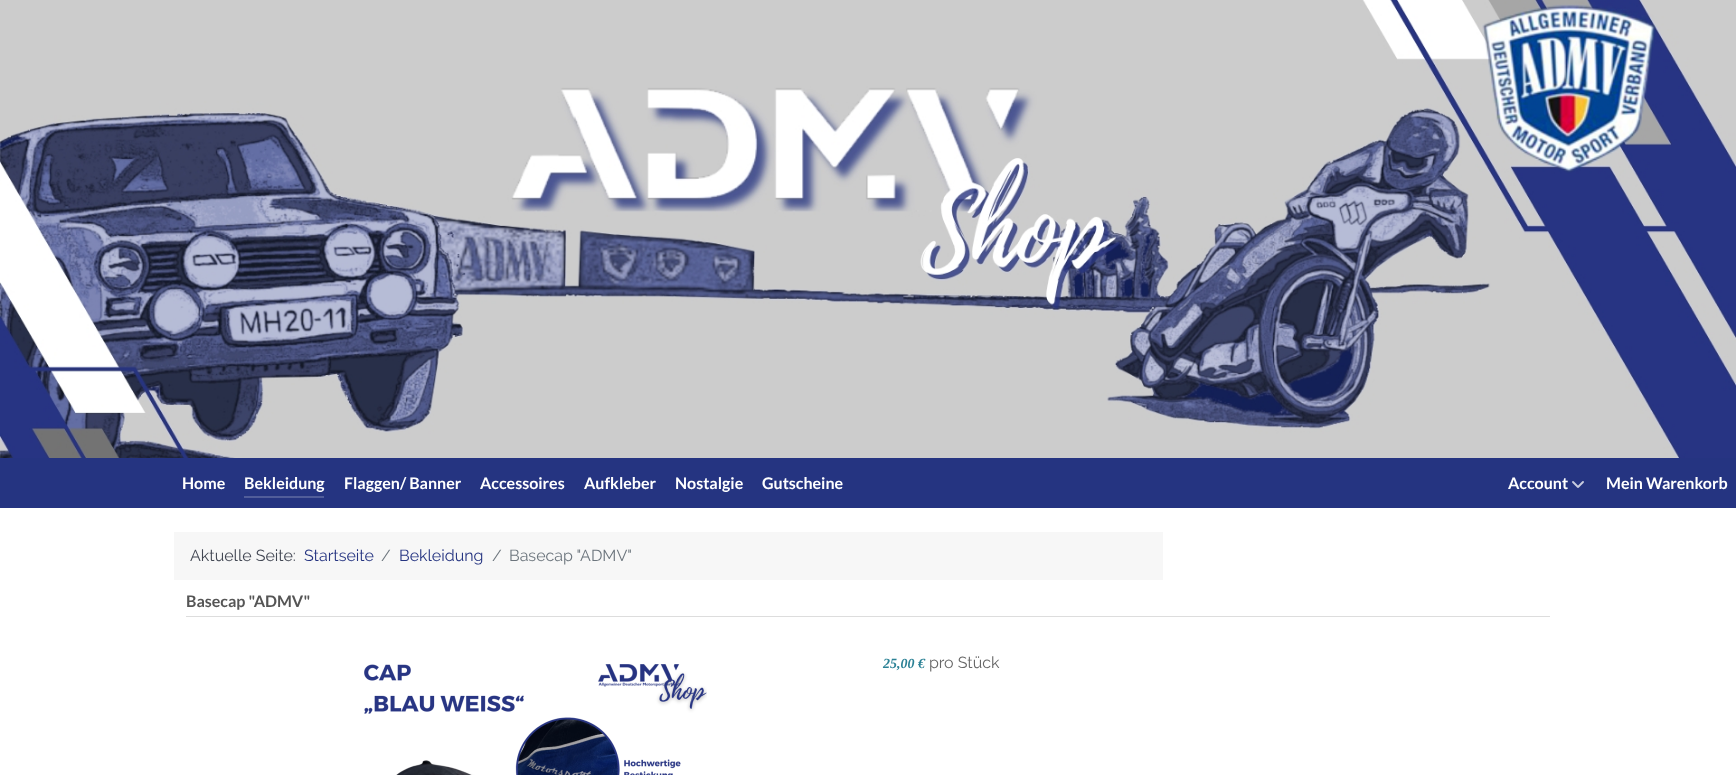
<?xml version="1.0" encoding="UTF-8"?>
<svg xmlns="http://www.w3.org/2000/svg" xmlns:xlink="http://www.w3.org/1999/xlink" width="1736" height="775">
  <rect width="100%" height="100%" fill="#ffffff" />
  <rect y="458" width="1736" height="50" fill="#253481" />
  <image x="0" y="0" width="1736" height="458" xlink:href="image1.png" />
  <rect x="244" y="496" width="80" height="2" fill="#515d9a" />
  <image x="1572" y="481" width="12" height="7" xlink:href="image2.png" />
  <rect x="174" y="532" width="989" height="48" fill="#f7f7f7" />
  <rect x="186" y="616" width="1364" height="1" fill="#dddddd" />
  <image x="364" y="664" width="343" height="111" xlink:href="image3.png" />
  <text x="182" y="489" style="font-family: Lato; font-size: 16px; font-weight: bold; fill: #ffffff">Home</text>
  <text x="244" y="489" style="font-family: Lato; font-size: 16px; font-weight: bold; fill: #ffffff">Bekleidung</text>
  <text x="344" y="489" style="font-family: Lato; font-size: 16px; font-weight: bold; fill: #ffffff">Flaggen/ Banner</text>
  <text x="480" y="489" style="font-family: Lato; font-size: 16px; font-weight: bold; fill: #ffffff">Accessoires</text>
  <text x="584" y="489" style="font-family: Lato; font-size: 16px; font-weight: bold; fill: #ffffff">Aufkleber</text>
  <text x="675" y="489" style="font-family: Lato; font-size: 16px; font-weight: bold; fill: #ffffff">Nostalgie</text>
  <text x="762" y="489" style="font-family: Lato; font-size: 16px; font-weight: bold; fill: #ffffff">Gutscheine</text>
  <text x="1508" y="489" style="font-family: Lato; font-size: 16px; font-weight: bold; fill: #ffffff">Account</text>
  <text x="1606" y="489" style="font-family: Lato; font-size: 16px; font-weight: bold; fill: #ffffff">Mein Warenkorb</text>
  <text x="190" y="561" style="font-family: Raleway; font-size: 16px; fill: #424753">Aktuelle Seite:</text>
  <text x="304" y="561" style="font-family: Raleway; font-size: 16px; fill: #253481">Startseite</text>
  <text x="381" y="561" style="font-family: Raleway; font-size: 16px; fill: #6c757d">/</text>
  <text x="399" y="561" style="font-family: Raleway; font-size: 16px; fill: #253481">Bekleidung</text>
  <text x="492" y="561" style="font-family: Raleway; font-size: 16px; fill: #6c757d">/</text>
  <text x="509" y="561" style="font-family: Raleway; font-size: 16px; fill: #6c757d">Basecap "ADMV"</text>
  <text x="186" y="607" style="font-family: Lato; font-size: 16px; font-weight: bold; fill: #555555">Basecap "ADMV"</text>
  <text x="883" y="668" style="font-family: Liberation Serif; font-size: 14px; font-weight: bold; font-style: italic; fill: #2c8296">25,00 €</text>
  <text x="929" y="668" style="font-family: Raleway; font-size: 16px; fill: #666666">pro Stück</text>
</svg>
